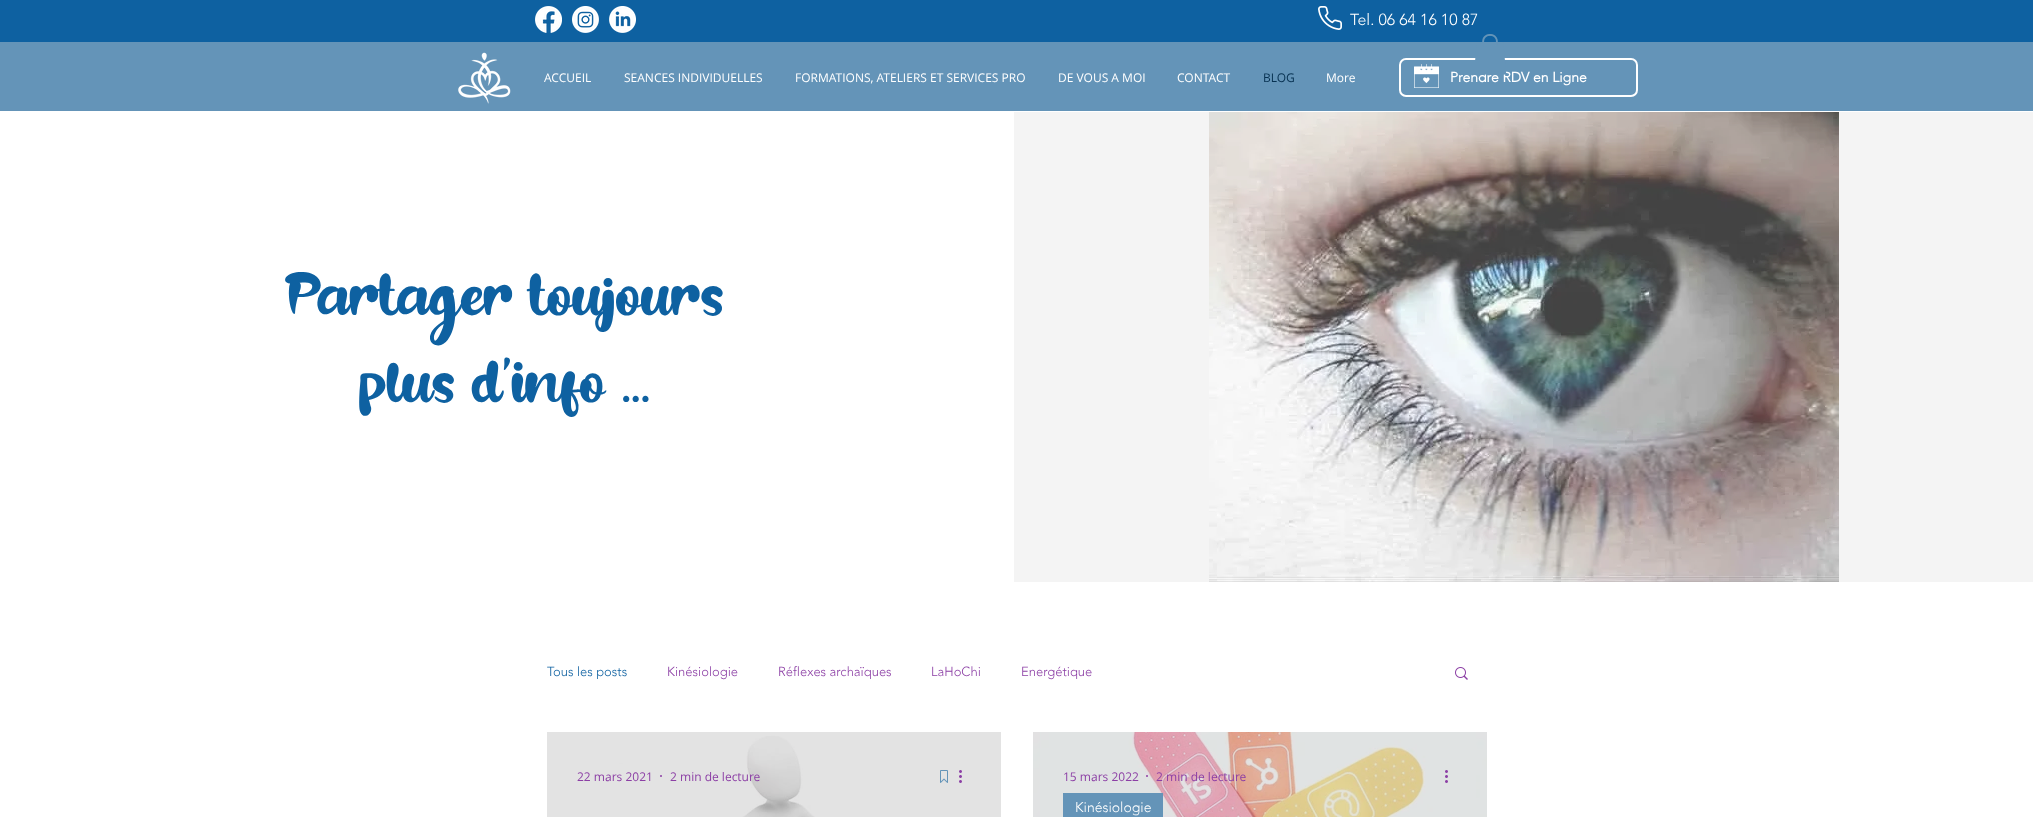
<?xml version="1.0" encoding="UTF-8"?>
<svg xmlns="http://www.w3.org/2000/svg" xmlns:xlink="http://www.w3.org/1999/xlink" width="2033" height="817">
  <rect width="100%" height="100%" fill="#ffffff" />
  <rect x="547" y="732" width="454" height="85" fill="#e3e3e3" />
  <rect width="2033" height="42" fill="#0e61a1" />
  <image x="535" y="6" width="27" height="27" xlink:href="image1.png" />
  <image x="572" y="6" width="27" height="27" xlink:href="image2.png" />
  <image x="609" y="6" width="27" height="27" xlink:href="image3.png" />
  <image x="1318" y="6" width="24" height="24" xlink:href="image4.png" />
  <rect y="42" width="2033" height="69" fill="#6494b8" />
  <image x="458" y="52" width="53" height="52" xlink:href="image6.png" />
  <rect x="1400" y="59" width="237" height="37" rx="6" fill="none" stroke="#ffffff" stroke-width="2" />
  <image x="1414" y="64" width="25" height="24" xlink:href="image7.png" />
  <rect x="1014" y="112" width="1019" height="470" fill="#f4f4f4" />
  <image x="1209" y="112" width="630" height="470" xlink:href="image8.png" />
  <image x="1455" y="667" width="13" height="13" xlink:href="image9.png" />
  <image x="580" y="732" width="281" height="85" xlink:href="image10.png" />
  <circle cx="661" cy="776" r="1" fill="#8c3fa5" />
  <image x="940" y="770" width="8" height="13" xlink:href="image11.png" />
  <image x="959" y="770" width="3" height="13" xlink:href="image12.png" />
  <image x="1033" y="732" width="454" height="85" xlink:href="image13.png" />
  <image x="1040" y="732" width="436" height="85" xlink:href="image14.png" />
  <circle cx="1147" cy="776" r="1" fill="#8c3fa5" />
  <image x="1445" y="770" width="3" height="13" xlink:href="image15.png" />
  <rect x="1063" y="793" width="100" height="24" fill="#6494b8" />
  <text x="1350" y="25" style="font-family: 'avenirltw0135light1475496'; font-size: 16px; font-weight: 300; fill: #ffffff">Tel. 06 64 16 10 87</text>
  <text x="544" y="82" style="font-family: Open Sans; font-size: 12px; fill: #ffffff">ACCUEIL</text>
  <text x="624" y="82" style="font-family: Open Sans; font-size: 12px; fill: #ffffff">SEANCES INDIVIDUELLES</text>
  <text x="795" y="82" style="font-family: Open Sans; font-size: 12px; fill: #ffffff">FORMATIONS, ATELIERS ET SERVICES PRO</text>
  <text x="1058" y="82" style="font-family: Open Sans; font-size: 12px; fill: #ffffff">DE VOUS A MOI</text>
  <text x="1177" y="82" style="font-family: Open Sans; font-size: 12px; fill: #ffffff">CONTACT</text>
  <text x="1263" y="82" style="font-family: Open Sans; font-size: 12px; fill: #073151">BLOG</text>
  <text x="1326" y="82" style="font-family: Open Sans; font-size: 12px; fill: #ffffff">More</text>
  <text x="1450" y="82" style="font-family: 'avenirltw0135light1475496'; font-size: 14px; font-weight: bold; fill: #ffffff">Prendre RDV en Ligne</text>
  <image x="1475" y="34" width="32" height="41" xlink:href="image5.png" />
  <text x="285" y="315" style="font-family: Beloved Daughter; font-size: 56px; fill: #0e61a1">Partager toujours</text>
  <text x="360" y="402" style="font-family: Beloved Daughter; font-size: 56px; fill: #0e61a1">plus d'info ...</text>
  <text x="547" y="676" style="font-family: 'avenirltw0135light1475496'; font-size: 13px; font-weight: 300; fill: #0e61a1">Tous les posts</text>
  <text x="667" y="676" style="font-family: 'avenirltw0135light1475496'; font-size: 13px; font-weight: 300; fill: #8c3fa5">Kinésiologie</text>
  <text x="778" y="676" style="font-family: 'avenirltw0135light1475496'; font-size: 13px; font-weight: 300; fill: #8c3fa5">Réflexes archaïques</text>
  <text x="931" y="676" style="font-family: 'avenirltw0135light1475496'; font-size: 13px; font-weight: 300; fill: #8c3fa5">LaHoChi</text>
  <text x="1021" y="676" style="font-family: 'avenirltw0135light1475496'; font-size: 13px; font-weight: 300; fill: #8c3fa5">Energétique</text>
  <text x="577" y="781" style="font-family: Open Sans; font-size: 12px; fill: #8c3fa5">22 mars 2021</text>
  <text x="670" y="781" style="font-family: Open Sans; font-size: 12px; fill: #8c3fa5">2 min de lecture</text>
  <text x="1063" y="781" style="font-family: Open Sans; font-size: 12px; fill: #8c3fa5">15 mars 2022</text>
  <text x="1156" y="781" style="font-family: Open Sans; font-size: 12px; fill: #8c3fa5">2 min de lecture</text>
  <text x="1075" y="812" style="font-family: 'avenirltw0135light1475496'; font-size: 14px; font-weight: 300; fill: #ffffff">Kinésiologie</text>
</svg>
